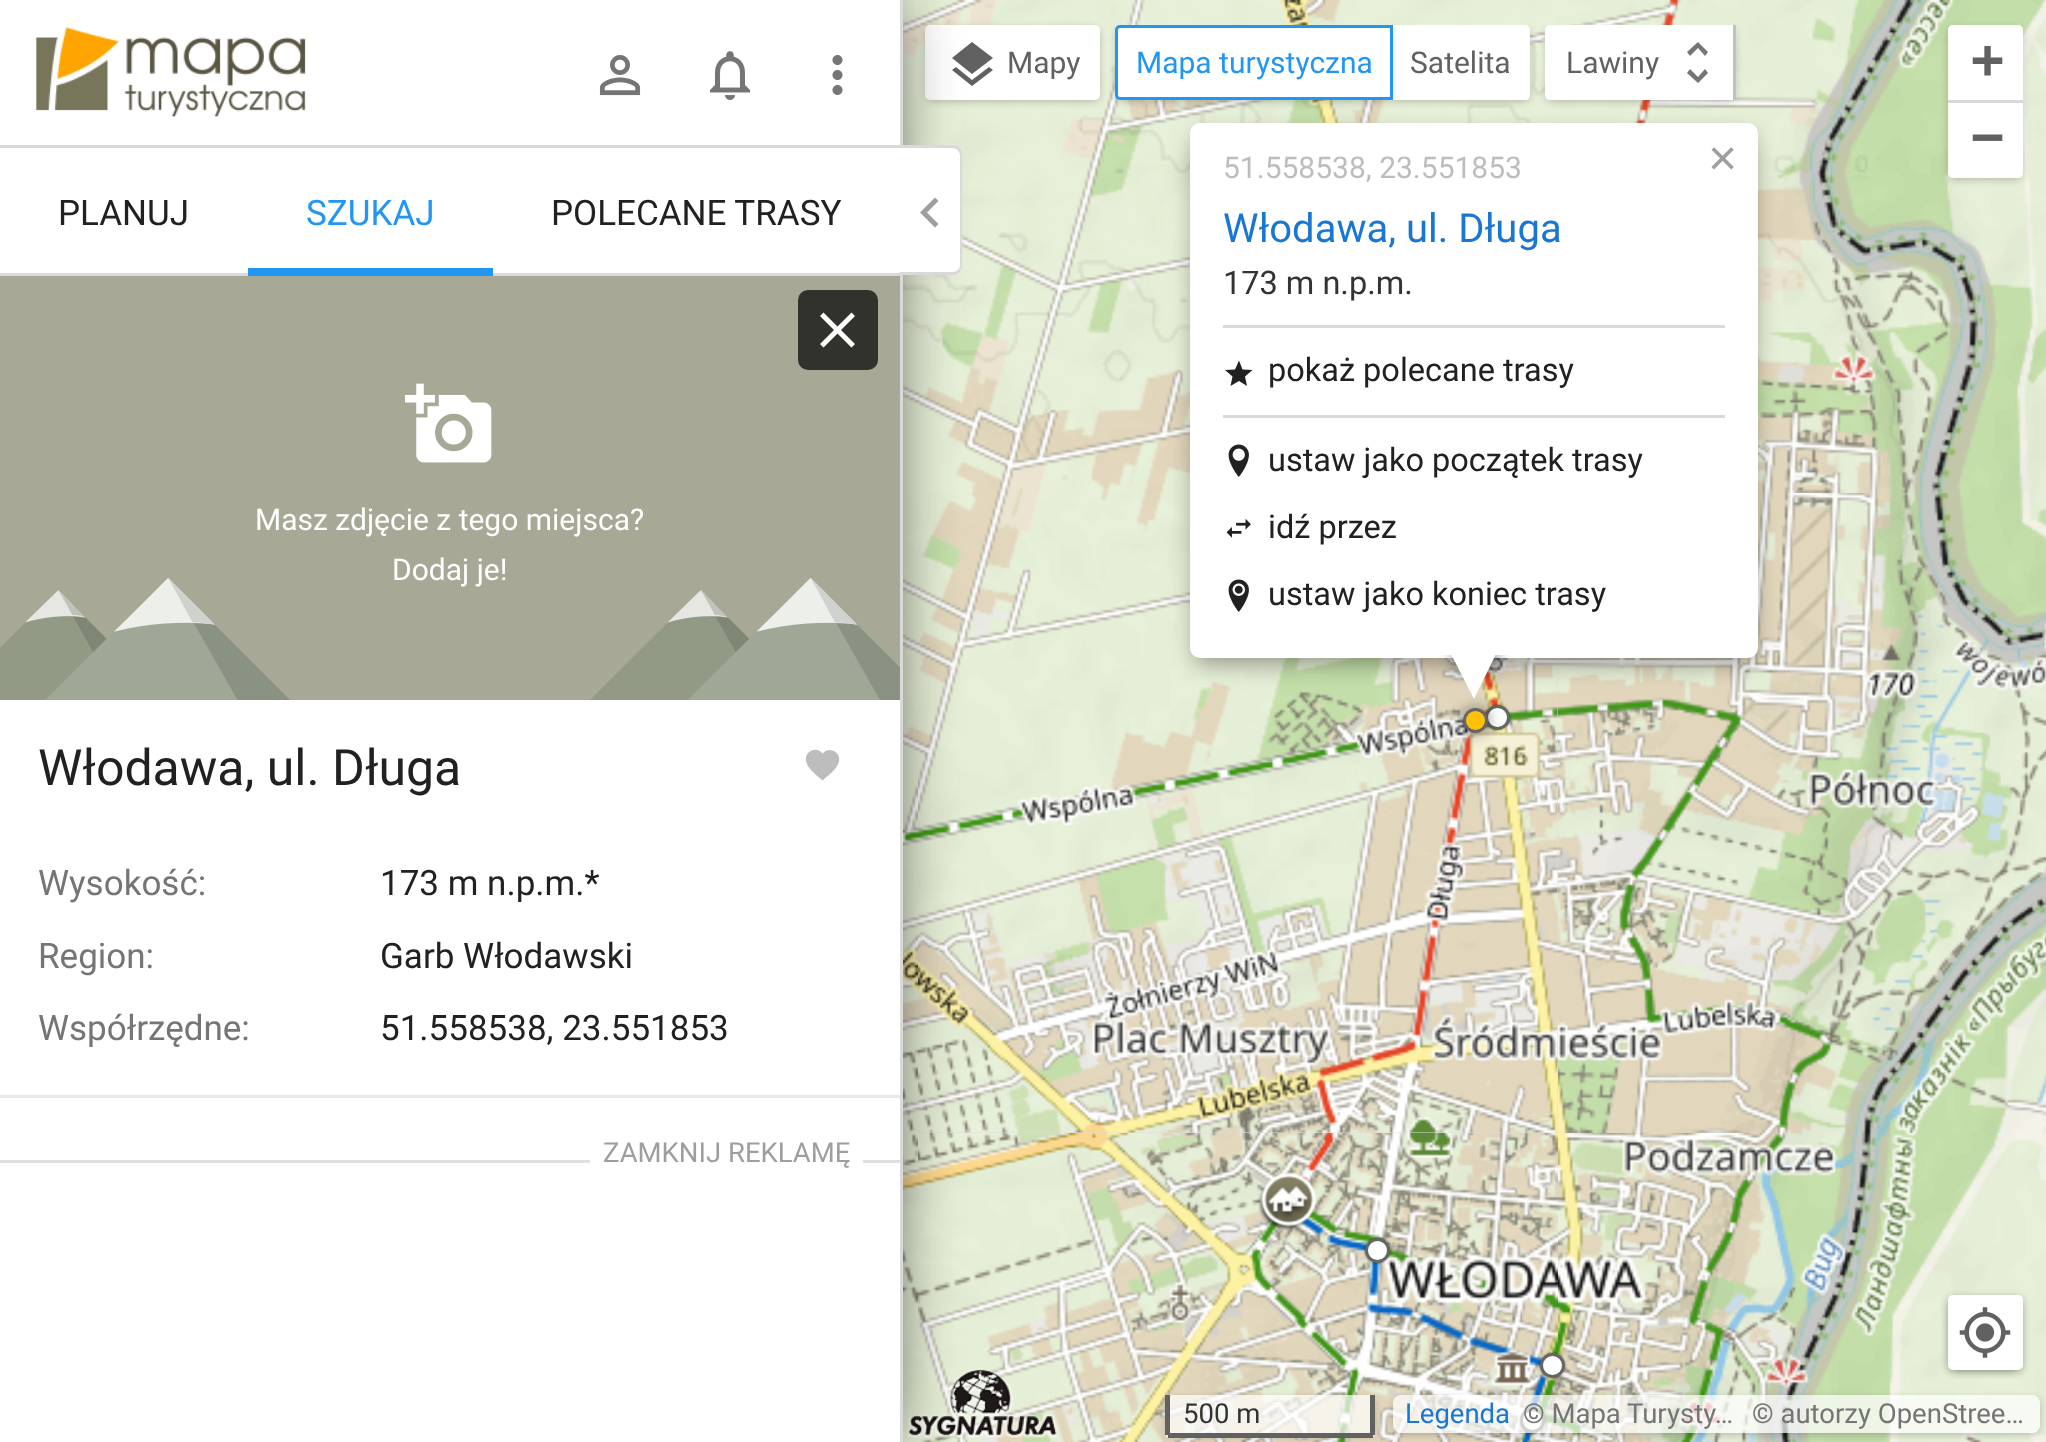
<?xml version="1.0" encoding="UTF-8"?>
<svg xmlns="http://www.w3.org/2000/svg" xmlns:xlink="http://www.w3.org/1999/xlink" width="2046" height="1442">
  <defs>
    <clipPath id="clip1"><rect x="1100" y="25" width="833" height="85" /></clipPath>
    <clipPath id="clip2"><path d="M 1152 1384 h 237 v 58 h -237 z m 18 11 h 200 c 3 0 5 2 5 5 v 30 c 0 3 -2 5 -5 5 h -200 c -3 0 -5 -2 -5 -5 v -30 c 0 -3 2 -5 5 -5 z" clip-rule="evenodd" /></clipPath>
    <clipPath id="clip3"><path d="M 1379 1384 h 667 v 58 h -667 z m 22 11 h 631 c 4.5 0 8 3.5 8 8 v 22 c 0 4.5 -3.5 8 -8 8 h -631 c -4.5 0 -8 -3.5 -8 -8 v -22 c 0 -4.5 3.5 -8 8 -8 z" clip-rule="evenodd" /></clipPath>
    <clipPath id="clip4"><rect x="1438" y="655" width="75" height="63" /></clipPath>
    <clipPath id="clip5"><rect x="1438" y="655" width="75" height="63" /></clipPath>
  </defs>
  <rect width="100%" height="100%" fill="#dddddd" />
  <image x="903" y="0" width="15" height="493" xlink:href="image10.png" />
  <image x="918" y="0" width="640" height="493" xlink:href="image11.png" />
  <rect x="928" y="30" width="170" height="70" rx="2.5" fill="#000000" fill-opacity="0.3" filter="blur(5px)" />
  <rect x="925" y="25" width="175" height="75" rx="5" fill="#ffffff" />
  <path d="M 972 74 l -20 -16 l 20 -16 l 21 16 z m 0 6 l 17 -13 l 4 3 l -21 16 l -20 -16 l 4 -3 z" fill="#616161" />
  <image x="903" y="1133" width="15" height="309" xlink:href="image16.png" />
  <image x="918" y="1133" width="640" height="309" xlink:href="image17.png" />
  <image x="907" y="1368" width="152" height="70" xlink:href="image8.png" />
  <image x="903" y="493" width="15" height="640" xlink:href="image13.png" />
  <image x="918" y="493" width="640" height="640" xlink:href="image14.png" />
  <rect x="-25" width="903" height="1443" fill="#000000" filter="blur(37.5px)" />
  <rect width="900" height="1442" fill="#ffffff" />
  <rect x="900" width="3" height="1442" fill="#d9d9d9" />
  <rect y="145" width="900" height="3" fill="#d9d9d9" />
  <image x="36" y="27" width="270" height="90" xlink:href="image1.png" />
  <image x="599" y="55" width="42" height="41" xlink:href="image2.png" />
  <image x="709" y="51" width="42" height="49" xlink:href="image3.png" />
  <image x="832" y="55" width="11" height="40" xlink:href="image4.png" />
  <rect y="273" width="900" height="3" fill="#d9d9d9" />
  <rect x="248" y="268" width="245" height="8" fill="#2196f3" />
  <rect y="276" width="900" height="424" fill="#a8a897" />
  <rect x="798" y="290" width="80" height="80" rx="10" fill="#32322d" />
  <path d="M 855 316 l -14 14 l 14 14 l -3.5 3.5 l -14 -14 l -14 14 l -3.5 -3.5 l 14 -14 l -14 -14 l 3.5 -3.5 l 14 14 l 14 -14 z" fill="#ffffff" />
  <image x="405" y="383" width="87" height="80" xlink:href="image5.png" />
  <image x="0" y="578" width="290" height="122" xlink:href="image6.png" />
  <image x="590" y="578" width="310" height="122" xlink:href="image7.png" />
  <path d="M 822.5 780.5 c -5 -4.5 -13 -10.5 -15.5 -16.5 c -5 -10.5 8 -19.5 15.5 -10.5 c 7 -8.5 20 -0.5 16 9.5 c -3 7.5 -10.5 12.5 -16 17.5 z" fill="#bdbdbd" />
  <rect y="1095" width="900" height="3" fill="#e8e8e8" />
  <path d="M 900 148 h 52 c 4.5 0 8 3.5 8 8 v 109 c 0 4.5 -3.5 8 -8 8 h -52 z" fill="#ffffff" />
  <path d="M 900 145 h 52 c 6 0 10 4 10 10 v 110 c 0 6 -4 10 -10 10 h -52 z m 0 3 h 52 c 5 0 8 3 8 7 v 110 c 0 4 -3 7 -8 7 h -52 z" fill="#d9d9d9" fill-rule="evenodd" />
  <path d="M 938.5 201 l -11.5 11.5 l 11.5 11.5 l -3.5 3.5 l -15 -15 l 15 -15 z" fill="#9e9e9e" />
  <rect y="1160" width="900" height="3" fill="#e0e0e0" />
  <rect x="590" y="1160" width="273" height="3" fill="#ffffff" />
  <g clip-path="url(#clip1)">
    <rect x="1393" y="30" width="135" height="70" rx="2.5" fill="#000000" fill-opacity="0.3" filter="blur(5px)" />
  </g>
  <image x="1558" y="0" width="488" height="493" xlink:href="image12.png" />
  <image x="1558" y="493" width="488" height="640" xlink:href="image15.png" />
  <rect x="1195" y="138" width="558" height="525" rx="5" fill="#000000" fill-opacity="0.4" filter="blur(12.5px)" />
  <path d="M 1390 25 h 135 c 3 0 5 2 5 5 v 65 c 0 3 -2 5 -5 5 h -135 z" fill="#ffffff" />
  <g clip-path="url(#clip1)">
    <rect x="1118" y="30" width="272" height="70" rx="2.5" fill="#000000" fill-opacity="0.3" filter="blur(5px)" />
  </g>
  <path d="M 1120 26.5 h 271.5 v 72 h -271.5 c -2 0 -3.5 -1.5 -3.5 -3.5 v -65 c 0 -2 1.5 -3.5 3.5 -3.5 z" fill="#ffffff" stroke="#2196f3" stroke-width="3" />
  <g clip-path="url(#clip1)">
    <rect x="1548" y="30" width="185" height="70" rx="2.5" fill="#000000" fill-opacity="0.3" filter="blur(5px)" />
  </g>
  <path d="M 1550 25 h 185 v 75 h -185 c -3 0 -5 -2 -5 -5 v -65 c 0 -3 2 -5 5 -5 z" fill="#ffffff" />
  <path d="M 1698 77 l 7 -8 l 3 4 l -10 10 l -11 -10 l 3 -4 z m 0 -29 l -8 8 l -3 -4 l 11 -10 l 10 10 l -3 4 z" fill="#757575" />
  <rect x="1733" y="25" width="3" height="75" fill="#c0c0c0" />
  <rect x="1950" y="30" width="70" height="148" rx="2.5" fill="#000000" fill-opacity="0.3" filter="blur(5px)" />
  <path d="M 1953 25 h 65 c 3 0 5 2 5 5 v 73 h -75 v -73 c 0 -3 2 -5 5 -5 z" fill="#ffffff" />
  <rect x="1948" y="100" width="75" height="3" fill="#d9d9d9" />
  <path d="M 1948 103 h 75 v 70 c 0 3 -2 5 -5 5 h -65 c -3 0 -5 -2 -5 -5 z" fill="#ffffff" />
  <image x="1558" y="1133" width="488" height="309" xlink:href="image18.png" />
  <rect x="1950" y="1300" width="70" height="70" rx="2.5" fill="#000000" fill-opacity="0.3" filter="blur(5px)" />
  <rect x="1950" y="1300" width="70" height="70" rx="2.5" fill="#000000" fill-opacity="0.3" filter="blur(5px)" />
  <rect x="1948" y="1295" width="75" height="75" rx="5" fill="#ffffff" />
  <image x="1959" y="1307" width="52" height="51" xlink:href="image9.png" />
  <g clip-path="url(#clip2)">
    <rect x="1168" y="1400" width="205" height="35" rx="2.5" fill="#000000" fill-opacity="0.3" filter="blur(5px)" />
  </g>
  <path d="M 1165 1395 h 210 v 38 c 0 3 -2 5 -5 5 h -200 c -3 0 -5 -2 -5 -5 z" fill="#ffffff" fill-opacity="0.7" />
  <rect x="1370" y="1395" width="5" height="40" fill="#616161" />
  <rect x="1168" y="1433" width="205" height="5" fill="#616161" />
  <rect x="1165" y="1395" width="5" height="40" fill="#616161" />
  <rect x="1520" y="1408" width="25" height="25" rx="12.5" fill="#000000" fill-opacity="0.5" filter="blur(1px)" />
  <circle cx="1532.5" cy="1420.5" r="11" fill="#ffffff" stroke="#666666" stroke-width="3" />
  <g clip-path="url(#clip3)">
    <rect x="1395" y="1400" width="643" height="33" rx="5" fill="#000000" fill-opacity="0.3" filter="blur(5px)" />
  </g>
  <rect x="1393" y="1395" width="647" height="38" rx="8" fill="#ffffff" fill-opacity="0.7" />
  <rect x="1190" y="123" width="568" height="535" rx="10" fill="#ffffff" />
  <rect x="1223" y="325" width="502" height="3" fill="#d9d9d9" />
  <path d="M 1239 381 l -8.5 5 l 2 -9.5 l -7.5 -6.5 l 10 -0.5 l 4 -9 l 3.5 9 l 10 0.5 l -7.5 6.5 l 2 9.5 z" fill="#212121" />
  <rect x="1223" y="415" width="502" height="3" fill="#d9d9d9" />
  <image x="1228" y="444" width="21" height="33" xlink:href="image19.png" />
  <image x="1226" y="519" width="25" height="19" xlink:href="image20.png" />
  <image x="1228" y="579" width="21" height="33" xlink:href="image21.png" />
  <g clip-path="url(#clip4)">
    <rect x="1458" y="633" width="35" height="35" fill="#000000" fill-opacity="0.7" filter="blur(9px)" />
  </g>
  <rect x="1485" y="705" width="25" height="25" rx="12.5" fill="#000000" fill-opacity="0.5" filter="blur(1px)" />
  <circle cx="1497.5" cy="717.5" r="11" fill="#ffffff" stroke="#666666" stroke-width="3" />
  <rect x="1463" y="708" width="25" height="25" rx="12.5" fill="#000000" fill-opacity="0.5" filter="blur(7.5px)" />
  <g clip-path="url(#clip5)">
    <path d="M 1474 601 l 24 49 l -24 49 l -25 -49 z" fill="#ffffff" />
  </g>
  <circle cx="1475.5" cy="720.5" r="11" fill="#ffc107" stroke="#666666" stroke-width="3" />
  <image x="1258" y="1172" width="59" height="59" xlink:href="image22.png" />
  <rect x="1365" y="1238" width="25" height="25" rx="12.5" fill="#000000" fill-opacity="0.5" filter="blur(1px)" />
  <circle cx="1377.5" cy="1250.5" r="11" fill="#ffffff" stroke="#666666" stroke-width="3" />
  <rect x="1540" y="1353" width="25" height="25" rx="12.5" fill="#000000" fill-opacity="0.5" filter="blur(1px)" />
  <circle cx="1552.5" cy="1365.5" r="11" fill="#ffffff" stroke="#666666" stroke-width="3" />
  <text x="58" y="225" style="font-family: Roboto; font-size: 35px; fill: #212121">PLANUJ</text>
  <text x="306" y="225" style="font-family: Roboto; font-size: 35px; fill: #2196f3">SZUKAJ</text>
  <text x="551" y="225" style="font-family: Roboto; font-size: 35px; fill: #212121">POLECANE TRASY</text>
  <text x="255" y="530" style="font-family: Roboto; font-size: 30px; fill: #ffffff">Masz zdjęcie z tego miejsca?</text>
  <text x="392" y="580" style="font-family: Roboto; font-size: 30px; fill: #ffffff">Dodaj je!</text>
  <text x="38" y="785" style="font-family: Roboto; font-size: 50px; fill: #212121">Włodawa, ul. Długa</text>
  <text x="38" y="895" style="font-family: Roboto; font-size: 35px; fill: #757575">Wysokość:</text>
  <text x="380" y="895" style="font-family: Roboto; font-size: 35px; fill: #212121">173 m n.p.m.*</text>
  <text x="38" y="968" style="font-family: Roboto; font-size: 35px; fill: #757575">Region:</text>
  <text x="380" y="968" style="font-family: Roboto; font-size: 35px; fill: #212121">Garb Włodawski</text>
  <text x="38" y="1040" style="font-family: Roboto; font-size: 35px; fill: #757575">Współrzędne:</text>
  <text x="380" y="1040" style="font-family: Roboto; font-size: 35px; fill: #212121">51.558538, 23.551853</text>
  <text x="603" y="1162" style="font-family: Roboto; font-size: 27.5px; fill: #9e9e9e">ZAMKNIJ REKLAMĘ</text>
  <text x="1007" y="73" style="font-family: Roboto; font-size: 30px; fill: #616161">Mapy</text>
  <text x="1136" y="73" style="font-family: Roboto; font-size: 30px; fill: #2196f3">Mapa turystyczna</text>
  <text x="1410" y="73" style="font-family: Roboto; font-size: 30px; fill: #616161">Satelita</text>
  <text x="1566" y="73" style="font-family: Roboto; font-size: 30px; fill: #616161">Lawiny</text>
  <text x="1971" y="78" style="font-family: DejaVu Sans Mono; font-size: 55px; font-weight: bold; fill: #616161">+</text>
  <text x="1971" y="155" style="font-family: DejaVu Sans Mono; font-size: 55px; font-weight: bold; fill: #616161">−</text>
  <text x="1183" y="1423" style="font-family: Roboto; font-size: 27.5px; fill: #333333">500 m</text>
  <text x="1405" y="1423" style="font-family: Roboto; font-size: 27.5px; fill: #1976d2">Legenda</text>
  <text x="1523" y="1423" style="font-family: Roboto; font-size: 27.5px; fill: #757575">© Mapa Turysty…</text>
  <text x="1752" y="1423" style="font-family: Roboto; font-size: 27.5px; fill: #757575">© autorzy OpenStree…</text>
  <text x="1223" y="178" style="font-family: Roboto; font-size: 30px; fill: #bdbdbd">51.558538, 23.551853</text>
  <text x="1223" y="242" style="font-family: Roboto; font-size: 40px; fill: #1976d2">Włodawa, ul. Długa</text>
  <text x="1223" y="294" style="font-family: Roboto; font-size: 32.5px; fill: #333333">173 m n.p.m.</text>
  <text x="1268" y="381" style="font-family: Roboto; font-size: 32.5px; fill: #212121">pokaż polecane trasy</text>
  <text x="1268" y="471" style="font-family: Roboto; font-size: 32.5px; fill: #212121">ustaw jako początek trasy</text>
  <text x="1268" y="538" style="font-family: Roboto; font-size: 32.5px; fill: #212121">idź przez</text>
  <text x="1268" y="605" style="font-family: Roboto; font-size: 32.5px; fill: #212121">ustaw jako koniec trasy</text>
  <text x="1708" y="175" style="font-family: Liberation Sans; font-size: 50px; fill: #9e9e9e">×</text>
</svg>
